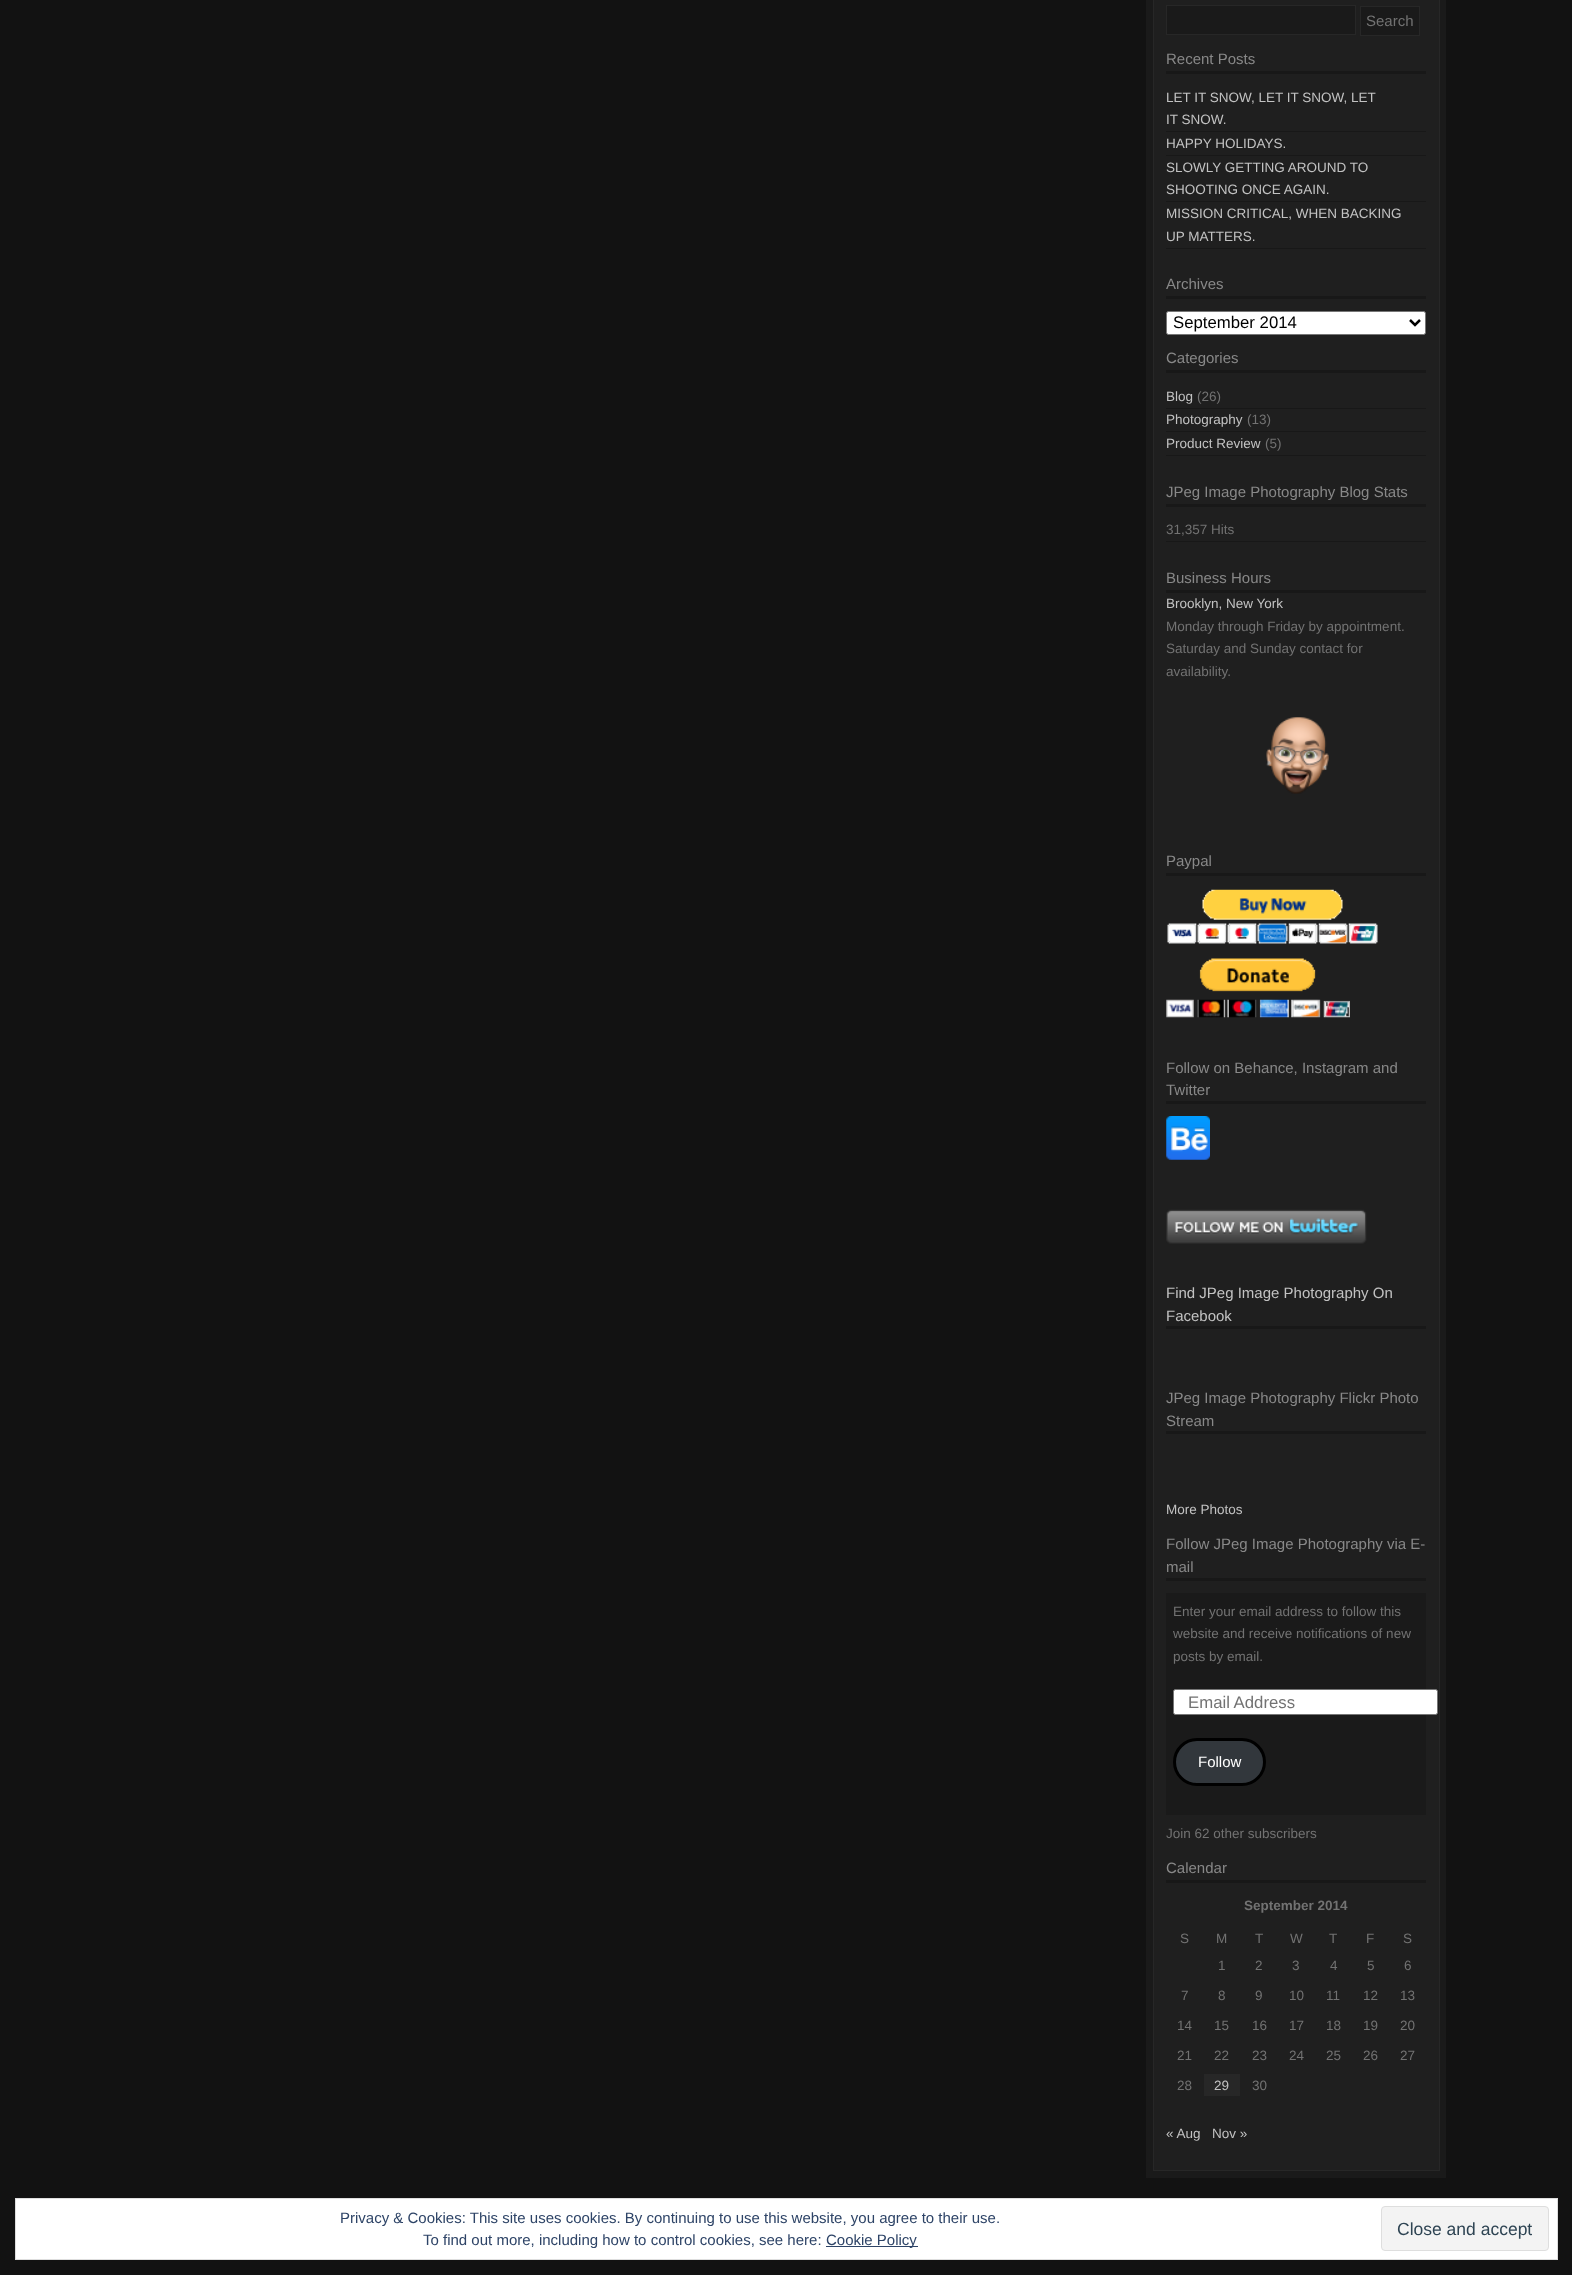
<?xml version="1.0" encoding="UTF-8"?>
<svg xmlns="http://www.w3.org/2000/svg" xmlns:xlink="http://www.w3.org/1999/xlink" width="1572" height="2275">
  <rect width="100%" height="100%" fill="#121212" />
  <rect x="1146" width="300" height="2178" fill="#1a1a1a" />
  <rect x="1153.5" y="-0.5" width="286" height="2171" fill="#1f1f1f" stroke="#272727" />
  <rect x="1166.5" y="5.5" width="189" height="29" fill="#1a1a1a" stroke="#272727" />
  <rect x="1360.5" y="6.5" width="59" height="29" fill="#1a1a1a" stroke="#272727" />
  <rect x="1166" y="71" width="260" height="3" fill="#181818" />
  <rect x="1166" y="131" width="260" height="1" fill="#181818" />
  <rect x="1166" y="155" width="260" height="1" fill="#181818" />
  <rect x="1166" y="201" width="260" height="1" fill="#181818" />
  <rect x="1166" y="248" width="260" height="1" fill="#181818" />
  <rect x="1166" y="296" width="260" height="3" fill="#181818" />
  <rect x="1166.5" y="311.5" width="259" height="23" rx="2" fill="#ffffff" stroke="#767676" />
  <path d="M 1410 320 l 5 5 l 5 -5" fill="none" stroke="#000000" stroke-width="2.5" />
  <rect x="1166" y="370" width="260" height="3" fill="#181818" />
  <rect x="1166" y="408" width="260" height="1" fill="#181818" />
  <rect x="1166" y="431" width="260" height="1" fill="#181818" />
  <rect x="1166" y="455" width="260" height="1" fill="#181818" />
  <rect x="1166" y="504" width="260" height="3" fill="#181818" />
  <rect x="1166" y="541" width="260" height="1" fill="#181818" />
  <rect x="1166" y="590" width="260" height="3" fill="#181818" />
  <image x="1266" y="717" width="63" height="77" xlink:href="image1.png" />
  <rect x="1166" y="873" width="260" height="3" fill="#181818" />
  <image x="1167" y="889" width="211" height="55" xlink:href="image2.png" />
  <image x="1166" y="958" width="184" height="60" xlink:href="image3.png" />
  <rect x="1166" y="1101" width="260" height="3" fill="#181818" />
  <image x="1166" y="1116" width="44" height="44" xlink:href="image4.png" />
  <image x="1166" y="1209" width="201" height="35" xlink:href="image5.png" />
  <rect x="1166" y="1326" width="260" height="3" fill="#181818" />
  <rect x="1166" y="1431" width="260" height="3" fill="#181818" />
  <rect x="1166" y="1578" width="260" height="3" fill="#181818" />
  <rect x="1166" y="1593" width="260" height="222" fill="#1a1a1a" />
  <rect x="1173.5" y="1689.5" width="264" height="25" rx="2" fill="#ffffff" stroke="#767676" />
  <rect x="1174.5" y="1739.5" width="90" height="45" rx="22.5" fill="#32373c" stroke="#000000" stroke-width="3" />
  <rect x="1166" y="1880" width="260" height="3" fill="#181818" />
  <rect x="1204" y="2074" width="36" height="22" fill="#272727" />
  <rect x="15.5" y="2198.5" width="1542" height="61" fill="#ffffff" stroke="#dedede" />
  <rect x="1381.5" y="2206.5" width="167" height="44" rx="3.5" fill="#f3f3f3" stroke="#dedede" />
  <rect x="826" y="2246" width="92" height="1" fill="#2e4467" />
  <text x="1366" y="26" style="font-family: Liberation Sans; font-size: 15px; fill: #727272">Search</text>
  <text x="1166" y="64" style="font-family: Liberation Sans; font-size: 15px; fill: #888888">Recent Posts</text>
  <text x="1166" y="102" style="font-family: Liberation Sans; font-size: 13.5px; fill: #c2c2c2">LET IT SNOW, LET IT SNOW, LET</text>
  <text x="1166" y="124" style="font-family: Liberation Sans; font-size: 13.5px; fill: #c2c2c2">IT SNOW.</text>
  <text x="1166" y="148" style="font-family: Liberation Sans; font-size: 13.5px; fill: #c2c2c2">HAPPY HOLIDAYS.</text>
  <text x="1166" y="172" style="font-family: Liberation Sans; font-size: 13.5px; fill: #c2c2c2">SLOWLY GETTING AROUND TO</text>
  <text x="1166" y="194" style="font-family: Liberation Sans; font-size: 13.5px; fill: #c2c2c2">SHOOTING ONCE AGAIN.</text>
  <text x="1166" y="218" style="font-family: Liberation Sans; font-size: 13.5px; fill: #c2c2c2">MISSION CRITICAL, WHEN BACKING</text>
  <text x="1166" y="241" style="font-family: Liberation Sans; font-size: 13.5px; fill: #c2c2c2">UP MATTERS.</text>
  <text x="1166" y="289" style="font-family: Liberation Sans; font-size: 15px; fill: #888888">Archives</text>
  <text x="1173" y="328" style="font-family: Liberation Sans; font-size: 16.75px; fill: #000000">September 2014</text>
  <text x="1166" y="363" style="font-family: Liberation Sans; font-size: 15px; fill: #888888">Categories</text>
  <text x="1166" y="401" style="font-family: Liberation Sans; font-size: 13.5px; fill: #c2c2c2">Blog</text>
  <text x="1197" y="401" style="font-family: Liberation Sans; font-size: 13.5px; fill: #727272">(26)</text>
  <text x="1166" y="424" style="font-family: Liberation Sans; font-size: 13.5px; fill: #c2c2c2">Photography</text>
  <text x="1247" y="424" style="font-family: Liberation Sans; font-size: 13.5px; fill: #727272">(13)</text>
  <text x="1166" y="448" style="font-family: Liberation Sans; font-size: 13.5px; fill: #c2c2c2">Product Review</text>
  <text x="1265" y="448" style="font-family: Liberation Sans; font-size: 13.5px; fill: #727272">(5)</text>
  <text x="1166" y="497" style="font-family: Liberation Sans; font-size: 15px; fill: #888888">JPeg Image Photography Blog Stats</text>
  <text x="1166" y="534" style="font-family: Liberation Sans; font-size: 13.5px; fill: #727272">31,357 Hits</text>
  <text x="1166" y="583" style="font-family: Liberation Sans; font-size: 15px; fill: #888888">Business Hours</text>
  <text x="1166" y="608" style="font-family: Liberation Sans; font-size: 13.5px; fill: #c2c2c2">Brooklyn, New York</text>
  <text x="1166" y="631" style="font-family: Liberation Sans; font-size: 13.5px; fill: #727272">Monday through Friday by appointment.</text>
  <text x="1166" y="653" style="font-family: Liberation Sans; font-size: 13.5px; fill: #727272">Saturday and Sunday contact for</text>
  <text x="1166" y="676" style="font-family: Liberation Sans; font-size: 13.5px; fill: #727272">availability.</text>
  <text x="1166" y="866" style="font-family: Liberation Sans; font-size: 15px; fill: #888888">Paypal</text>
  <text x="1166" y="1073" style="font-family: Liberation Sans; font-size: 15px; fill: #888888">Follow on Behance, Instagram and</text>
  <text x="1166" y="1095" style="font-family: Liberation Sans; font-size: 15px; fill: #888888">Twitter</text>
  <text x="1166" y="1298" style="font-family: Liberation Sans; font-size: 15px; fill: #c2c2c2">Find JPeg Image Photography On</text>
  <text x="1166" y="1321" style="font-family: Liberation Sans; font-size: 15px; fill: #c2c2c2">Facebook</text>
  <text x="1166" y="1403" style="font-family: Liberation Sans; font-size: 15px; fill: #888888">JPeg Image Photography Flickr Photo</text>
  <text x="1166" y="1426" style="font-family: Liberation Sans; font-size: 15px; fill: #888888">Stream</text>
  <text x="1166" y="1514" style="font-family: Liberation Sans; font-size: 13.5px; fill: #c2c2c2">More Photos</text>
  <text x="1166" y="1549" style="font-family: Liberation Sans; font-size: 15px; fill: #888888">Follow JPeg Image Photography via E-</text>
  <text x="1166" y="1572" style="font-family: Liberation Sans; font-size: 15px; fill: #888888">mail</text>
  <text x="1173" y="1616" style="font-family: Liberation Sans; font-size: 13.5px; fill: #727272">Enter your email address to follow this</text>
  <text x="1173" y="1638" style="font-family: Liberation Sans; font-size: 13.5px; fill: #727272">website and receive notifications of new</text>
  <text x="1173" y="1661" style="font-family: Liberation Sans; font-size: 13.5px; fill: #727272">posts by email.</text>
  <text x="1188" y="1708" style="font-family: Liberation Sans; font-size: 16.75px; fill: #727272">Email Address</text>
  <text x="1198" y="1767" style="font-family: Liberation Sans; font-size: 15px; fill: #ffffff">Follow</text>
  <text x="1166" y="1838" style="font-family: Liberation Sans; font-size: 13.5px; fill: #727272">Join 62 other subscribers</text>
  <text x="1166" y="1873" style="font-family: Liberation Sans; font-size: 15px; fill: #888888">Calendar</text>
  <text x="1244" y="1910" style="font-family: Liberation Sans; font-size: 13.5px; font-weight: bold; fill: #727272">September 2014</text>
  <text x="1180" y="1943" style="font-family: Liberation Sans; font-size: 13.5px; fill: #727272">S</text>
  <text x="1216" y="1943" style="font-family: Liberation Sans; font-size: 13.5px; fill: #727272">M</text>
  <text x="1255" y="1943" style="font-family: Liberation Sans; font-size: 13.5px; fill: #727272">T</text>
  <text x="1290" y="1943" style="font-family: Liberation Sans; font-size: 13.5px; fill: #727272">W</text>
  <text x="1329" y="1943" style="font-family: Liberation Sans; font-size: 13.5px; fill: #727272">T</text>
  <text x="1366" y="1943" style="font-family: Liberation Sans; font-size: 13.5px; fill: #727272">F</text>
  <text x="1403" y="1943" style="font-family: Liberation Sans; font-size: 13.5px; fill: #727272">S</text>
  <text x="1218" y="1970" style="font-family: Liberation Sans; font-size: 13.5px; fill: #727272">1</text>
  <text x="1255" y="1970" style="font-family: Liberation Sans; font-size: 13.5px; fill: #727272">2</text>
  <text x="1292" y="1970" style="font-family: Liberation Sans; font-size: 13.5px; fill: #727272">3</text>
  <text x="1330" y="1970" style="font-family: Liberation Sans; font-size: 13.5px; fill: #727272">4</text>
  <text x="1367" y="1970" style="font-family: Liberation Sans; font-size: 13.5px; fill: #727272">5</text>
  <text x="1404" y="1970" style="font-family: Liberation Sans; font-size: 13.5px; fill: #727272">6</text>
  <text x="1181" y="2000" style="font-family: Liberation Sans; font-size: 13.5px; fill: #727272">7</text>
  <text x="1218" y="2000" style="font-family: Liberation Sans; font-size: 13.5px; fill: #727272">8</text>
  <text x="1255" y="2000" style="font-family: Liberation Sans; font-size: 13.5px; fill: #727272">9</text>
  <text x="1289" y="2000" style="font-family: Liberation Sans; font-size: 13.5px; fill: #727272">10</text>
  <text x="1326" y="2000" style="font-family: Liberation Sans; font-size: 13.5px; fill: #727272">11</text>
  <text x="1363" y="2000" style="font-family: Liberation Sans; font-size: 13.5px; fill: #727272">12</text>
  <text x="1400" y="2000" style="font-family: Liberation Sans; font-size: 13.5px; fill: #727272">13</text>
  <text x="1177" y="2030" style="font-family: Liberation Sans; font-size: 13.5px; fill: #727272">14</text>
  <text x="1214" y="2030" style="font-family: Liberation Sans; font-size: 13.5px; fill: #727272">15</text>
  <text x="1252" y="2030" style="font-family: Liberation Sans; font-size: 13.5px; fill: #727272">16</text>
  <text x="1289" y="2030" style="font-family: Liberation Sans; font-size: 13.5px; fill: #727272">17</text>
  <text x="1326" y="2030" style="font-family: Liberation Sans; font-size: 13.5px; fill: #727272">18</text>
  <text x="1363" y="2030" style="font-family: Liberation Sans; font-size: 13.5px; fill: #727272">19</text>
  <text x="1400" y="2030" style="font-family: Liberation Sans; font-size: 13.5px; fill: #727272">20</text>
  <text x="1177" y="2060" style="font-family: Liberation Sans; font-size: 13.5px; fill: #727272">21</text>
  <text x="1214" y="2060" style="font-family: Liberation Sans; font-size: 13.5px; fill: #727272">22</text>
  <text x="1252" y="2060" style="font-family: Liberation Sans; font-size: 13.5px; fill: #727272">23</text>
  <text x="1289" y="2060" style="font-family: Liberation Sans; font-size: 13.5px; fill: #727272">24</text>
  <text x="1326" y="2060" style="font-family: Liberation Sans; font-size: 13.5px; fill: #727272">25</text>
  <text x="1363" y="2060" style="font-family: Liberation Sans; font-size: 13.5px; fill: #727272">26</text>
  <text x="1400" y="2060" style="font-family: Liberation Sans; font-size: 13.5px; fill: #727272">27</text>
  <text x="1177" y="2090" style="font-family: Liberation Sans; font-size: 13.5px; fill: #727272">28</text>
  <text x="1214" y="2090" style="font-family: Liberation Sans; font-size: 13.5px; fill: #c2c2c2">29</text>
  <text x="1252" y="2090" style="font-family: Liberation Sans; font-size: 13.5px; fill: #727272">30</text>
  <text x="1166" y="2138" style="font-family: Liberation Sans; font-size: 13.5px; fill: #c2c2c2">« Aug</text>
  <text x="1212" y="2138" style="font-family: Liberation Sans; font-size: 13.5px; fill: #c2c2c2">Nov »</text>
  <text x="340" y="2223" style="font-family: Liberation Sans; font-size: 15px; fill: #2e4467">Privacy &amp; Cookies: This site uses cookies. By continuing to use this website, you agree to their use.</text>
  <text x="1397" y="2235" style="font-family: Liberation Sans; font-size: 17.5px; fill: #2e4453">Close and accept</text>
  <text x="423" y="2245" style="font-family: Liberation Sans; font-size: 15px; fill: #2e4467">To find out more, including how to control cookies, see here:</text>
  <text x="826" y="2245" style="font-family: Liberation Sans; font-size: 15px; fill: #2e4467">Cookie Policy</text>
</svg>
